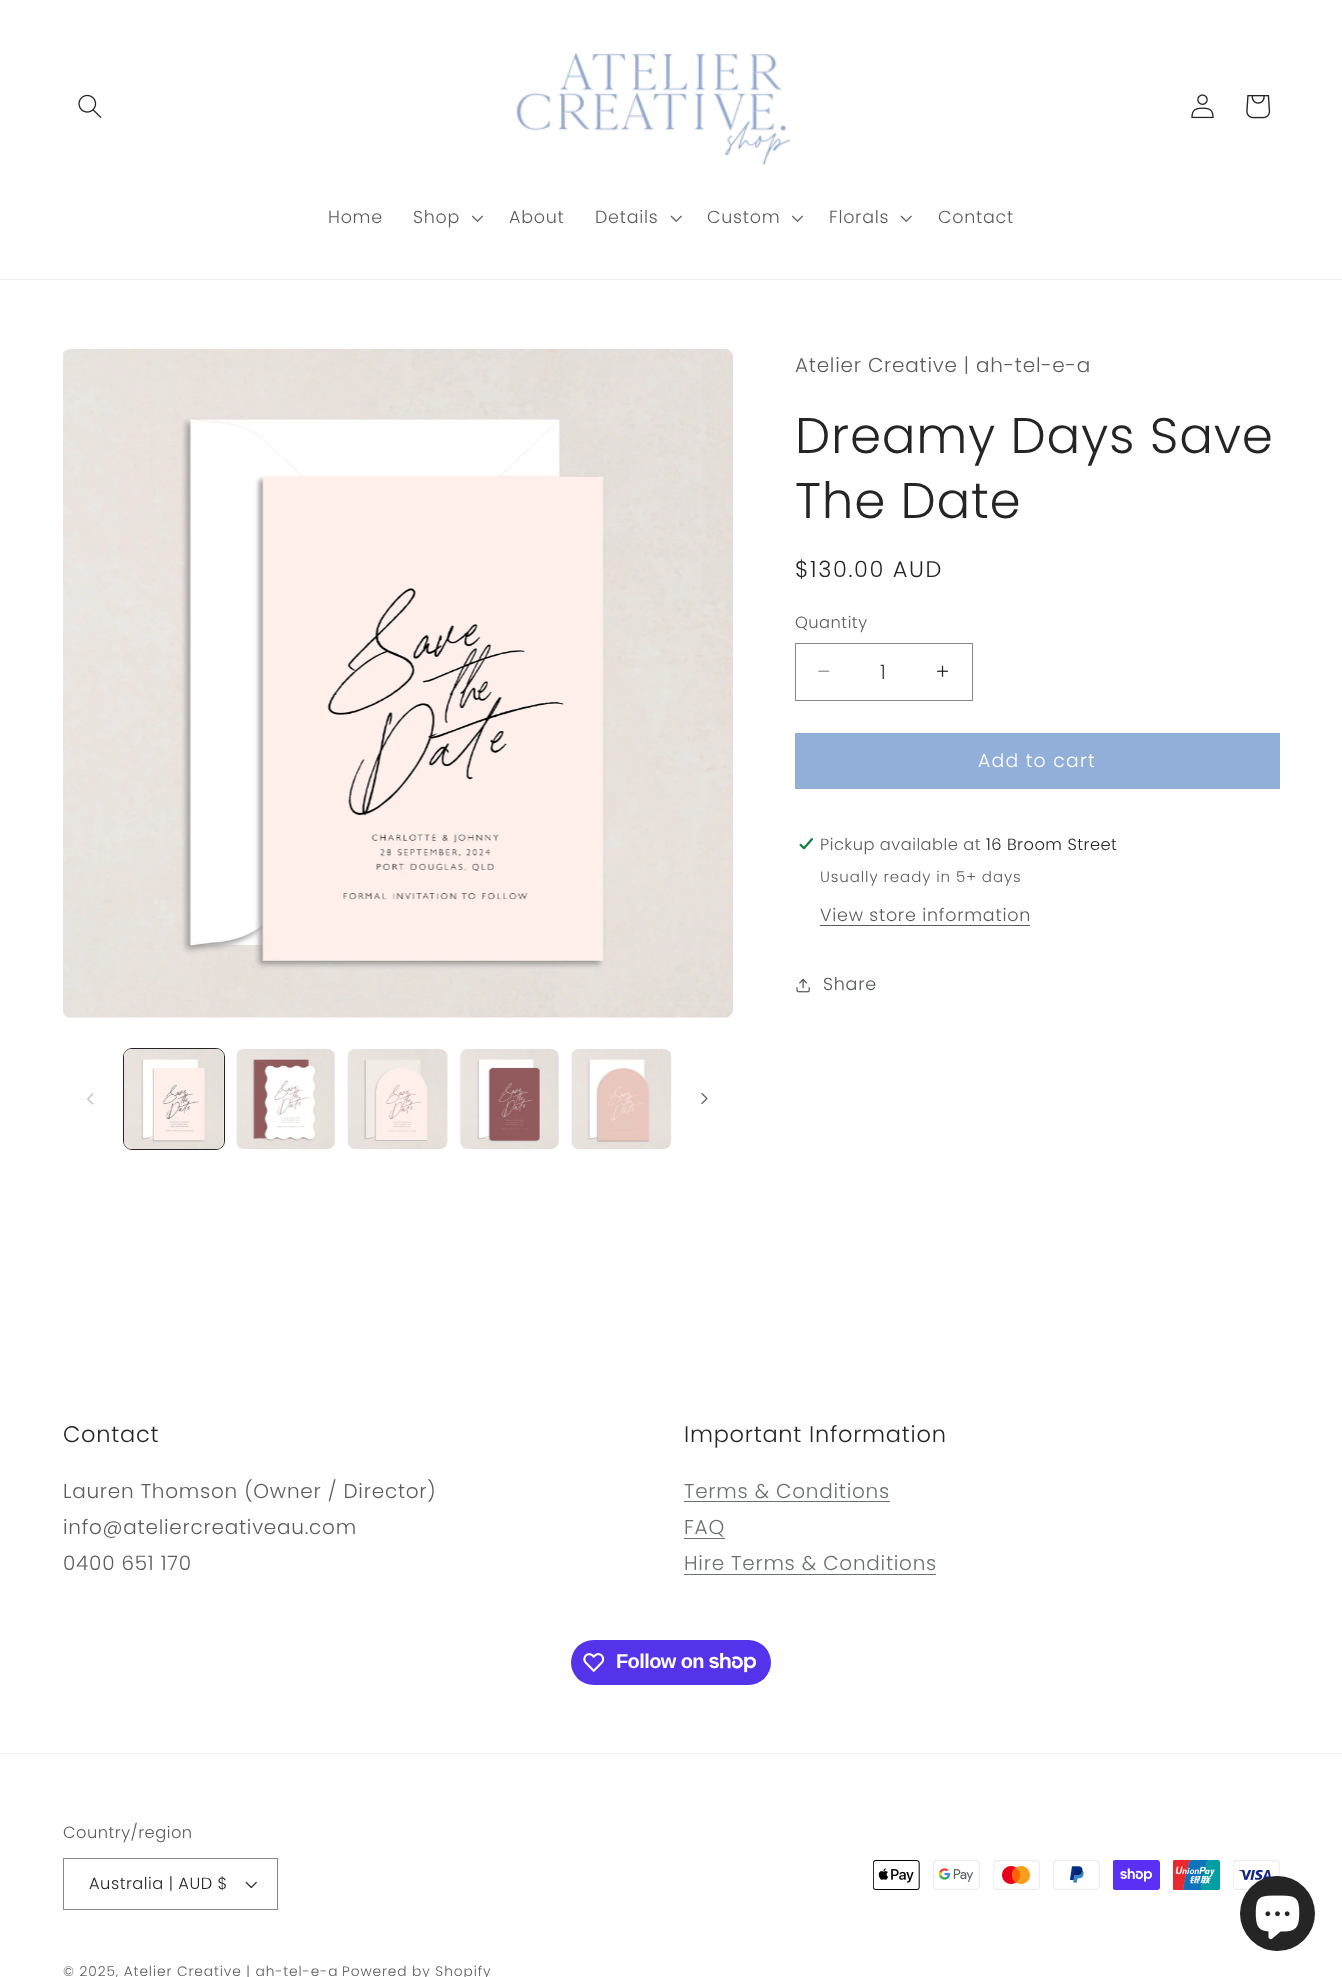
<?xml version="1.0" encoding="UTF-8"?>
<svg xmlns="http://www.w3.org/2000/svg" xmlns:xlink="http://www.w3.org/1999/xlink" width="1342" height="1977">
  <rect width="100%" height="100%" fill="#ffffff" />
  <rect y="279" width="1342" height="1" fill="#eeeeee" />
  <image x="78" y="94" width="24" height="24" xlink:href="image1.png" />
  <image x="516" y="52" width="275" height="114" xlink:href="image2.png" />
  <image x="1191" y="94" width="23" height="25" xlink:href="image3.png" />
  <image x="1246" y="95" width="25" height="24" xlink:href="image4.png" />
  <image x="471" y="215" width="13" height="7" xlink:href="image5.png" />
  <image x="670" y="215" width="12" height="7" xlink:href="image6.png" />
  <image x="791" y="215" width="13" height="7" xlink:href="image5.png" />
  <image x="900" y="215" width="12" height="7" xlink:href="image6.png" />
  <image x="63" y="349" width="670" height="669" xlink:href="image7.png" />
  <image x="87" y="1093" width="7" height="12" xlink:href="image8.png" />
  <rect x="123.5" y="1048.5" width="101" height="101" rx="8.5" fill="none" stroke="#252525" />
  <image x="124" y="1049" width="100" height="100" xlink:href="image9.png" />
  <image x="236" y="1049" width="99" height="100" xlink:href="image10.png" />
  <image x="347" y="1049" width="101" height="100" xlink:href="image11.png" />
  <image x="459" y="1049" width="100" height="100" xlink:href="image12.png" />
  <image x="571" y="1049" width="101" height="100" xlink:href="image13.png" />
  <image x="701" y="1093" width="7" height="12" xlink:href="image14.png" />
  <image x="818" y="670" width="12" height="2" xlink:href="image15.png" />
  <image x="936" y="665" width="13" height="12" xlink:href="image16.png" />
  <rect x="795.5" y="643.5" width="177" height="57" fill="none" stroke="#878787" />
  <rect x="795" y="733" width="485" height="56" fill="#91afd9" />
  <image x="799" y="837" width="15" height="13" xlink:href="image17.png" />
  <rect x="820" y="925" width="210" height="1" fill="#5c5c5c" />
  <image x="796" y="978" width="14" height="15" xlink:href="image18.png" />
  <rect x="684" y="1501" width="206" height="1" fill="#6a6f6f" />
  <rect x="684" y="1538" width="41" height="1" fill="#6a6f6f" />
  <rect x="684" y="1574" width="252" height="1" fill="#6a6f6f" />
  <rect x="571" y="1640" width="200" height="45" rx="22.5" fill="#5433eb" />
  <image x="583" y="1653" width="22" height="19" xlink:href="image19.png" />
  <image x="709" y="1653" width="47" height="20" xlink:href="image20.png" />
  <rect y="1753" width="1342" height="1" fill="#eeeeee" />
  <image x="245" y="1881" width="12" height="8" xlink:href="image21.png" />
  <rect x="63.5" y="1858.5" width="214" height="51" fill="none" stroke="#878787" />
  <image x="873" y="1860" width="47" height="30" xlink:href="image22.png" />
  <image x="933" y="1860" width="47" height="30" xlink:href="image23.png" />
  <image x="993" y="1860" width="47" height="30" xlink:href="image24.png" />
  <image x="1053" y="1860" width="47" height="30" xlink:href="image25.png" />
  <image x="1113" y="1860" width="47" height="30" xlink:href="image26.png" />
  <image x="1173" y="1860" width="47" height="30" xlink:href="image27.png" />
  <image x="1233" y="1860" width="47" height="30" xlink:href="image28.png" />
  <circle cx="1277.5" cy="1913.5" r="37.5" fill="#252525" />
  <image x="1255" y="1895" width="45" height="45" xlink:href="image29.png" />
  <text x="328" y="223" style="font-family: Poppins; font-size: 17.5px; font-weight: 300; letter-spacing: 0.75px; fill: #5c5c5c">Home</text>
  <text x="413" y="223" style="font-family: Poppins; font-size: 17.5px; font-weight: 300; letter-spacing: 0.75px; fill: #5c5c5c">Shop</text>
  <text x="509" y="223" style="font-family: Poppins; font-size: 17.5px; font-weight: 300; letter-spacing: 0.75px; fill: #5c5c5c">About</text>
  <text x="595" y="223" style="font-family: Poppins; font-size: 17.5px; font-weight: 300; letter-spacing: 0.75px; fill: #5c5c5c">Details</text>
  <text x="707" y="223" style="font-family: Poppins; font-size: 17.5px; font-weight: 300; letter-spacing: 0.75px; fill: #5c5c5c">Custom</text>
  <text x="829" y="223" style="font-family: Poppins; font-size: 17.5px; font-weight: 300; letter-spacing: 0.75px; fill: #5c5c5c">Florals</text>
  <text x="938" y="223" style="font-family: Poppins; font-size: 17.5px; font-weight: 300; letter-spacing: 0.75px; fill: #5c5c5c">Contact</text>
  <text x="795" y="372" style="font-family: Poppins; font-size: 20px; font-weight: 300; letter-spacing: 0.75px; fill: #5c5c5c">Atelier Creative | ah-tel-e-a</text>
  <text x="795" y="453" style="font-family: Poppins; font-size: 50px; font-weight: 300; letter-spacing: 0.75px; fill: #252525">Dreamy Days Save</text>
  <text x="795" y="518" style="font-family: Poppins; font-size: 50px; font-weight: 300; letter-spacing: 0.75px; fill: #252525">The Date</text>
  <text x="795" y="577" style="font-family: Poppins; font-size: 22.5px; font-weight: 300; letter-spacing: 1.6px; fill: #252525">$130.00 AUD</text>
  <text x="795" y="628" style="font-family: Poppins; font-size: 16.25px; font-weight: 300; letter-spacing: 0.5px; fill: #5c5c5c">Quantity</text>
  <text x="880" y="679" style="font-family: Poppins; font-size: 20px; font-weight: 300; fill: #464646">1</text>
  <text x="978" y="767" style="font-family: Poppins; font-size: 18.75px; font-weight: 300; letter-spacing: 1.25px; fill: #ffffff">Add to cart</text>
  <text x="820" y="850" style="font-family: Poppins; font-size: 16.25px; font-weight: 300; letter-spacing: 0.5px; fill: #5c5c5c">Pickup available at</text>
  <text x="986" y="850" style="font-family: Poppins; font-size: 16.25px; font-weight: 300; letter-spacing: 0.5px; fill: #252525">16 Broom Street</text>
  <text x="820" y="882" style="font-family: Poppins; font-size: 15px; font-weight: 300; letter-spacing: 0.9px; fill: #5c5c5c">Usually ready in 5+ days</text>
  <text x="820" y="921" style="font-family: Poppins; font-size: 17.5px; font-weight: 300; letter-spacing: 0.75px; fill: #5c5c5c">View store information</text>
  <text x="823" y="990" style="font-family: Poppins; font-size: 17.5px; font-weight: 300; letter-spacing: 0.75px; fill: #505655">Share</text>
  <text x="63" y="1442" style="font-family: Poppins; font-size: 22.5px; font-weight: 300; letter-spacing: 0.75px; fill: #252525">Contact</text>
  <text x="63" y="1498" style="font-family: Poppins; font-size: 20px; font-weight: 300; letter-spacing: 0.75px; fill: #5c5c5c">Lauren Thomson (Owner / Director)</text>
  <text x="63" y="1534" style="font-family: Poppins; font-size: 20px; font-weight: 300; letter-spacing: 0.75px; fill: #5c5c5c">info@ateliercreativeau.com</text>
  <text x="63" y="1570" style="font-family: Poppins; font-size: 20px; font-weight: 300; letter-spacing: 0.75px; fill: #5c5c5c">0400 651 170</text>
  <text x="684" y="1442" style="font-family: Poppins; font-size: 22.5px; font-weight: 300; letter-spacing: 0.75px; fill: #252525">Important Information</text>
  <text x="684" y="1498" style="font-family: Poppins; font-size: 20px; font-weight: 300; letter-spacing: 0.75px; fill: #6a6f6f">Terms &amp; Conditions</text>
  <text x="684" y="1534" style="font-family: Poppins; font-size: 20px; font-weight: 300; letter-spacing: 0.75px; fill: #6a6f6f">FAQ</text>
  <text x="684" y="1570" style="font-family: Poppins; font-size: 20px; font-weight: 300; letter-spacing: 0.75px; fill: #6a6f6f">Hire Terms &amp; Conditions</text>
  <text x="616" y="1668" style="font-family: Liberation Sans; font-size: 20px; font-weight: bold; letter-spacing: -0.6px; fill: #ffffff">Follow on</text>
  <text x="63" y="1838" style="font-family: Poppins; font-size: 16.25px; font-weight: 300; letter-spacing: 0.5px; fill: #5c5c5c">Country/region</text>
  <text x="89" y="1889" style="font-family: Poppins; font-size: 16.25px; font-weight: 300; letter-spacing: 0.5px; fill: #252525">Australia | AUD $</text>
  <text x="63" y="1976" style="font-family: Poppins; font-size: 13.75px; font-weight: 300; letter-spacing: 0.9px; fill: #5c5c5c">© 2025, Atelier Creative | ah-tel-e-a</text>
  <text x="342" y="1976" style="font-family: Poppins; font-size: 13.75px; font-weight: 300; letter-spacing: 0.9px; fill: #5c5c5c">Powered by Shopify</text>
</svg>
